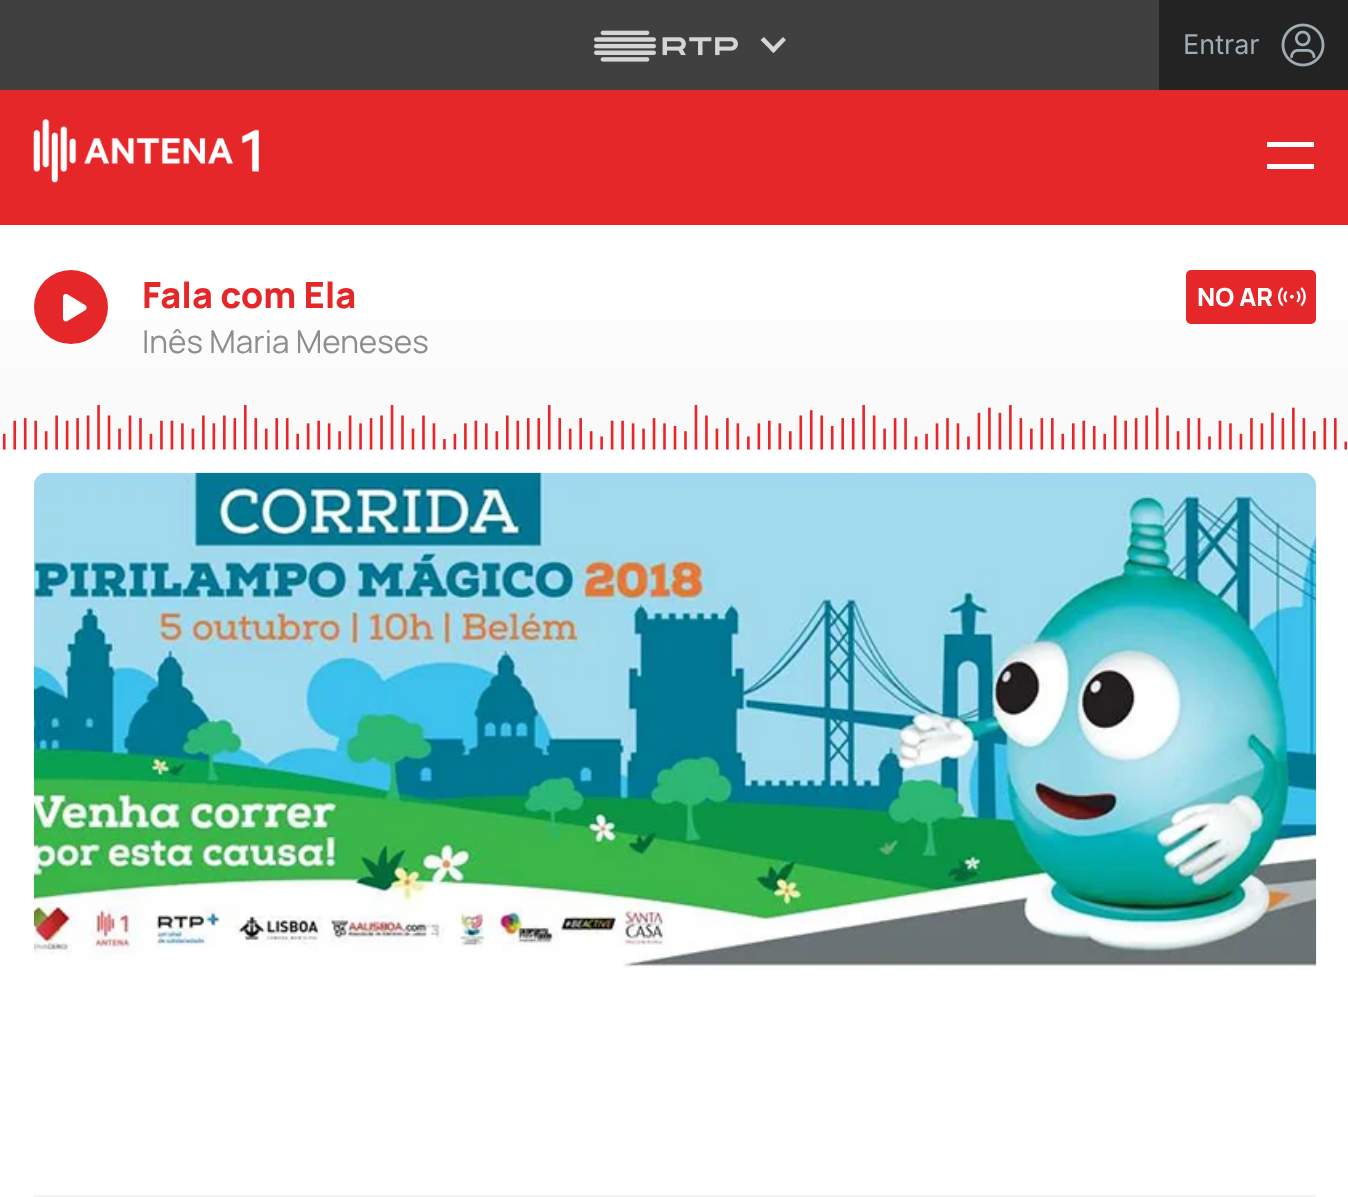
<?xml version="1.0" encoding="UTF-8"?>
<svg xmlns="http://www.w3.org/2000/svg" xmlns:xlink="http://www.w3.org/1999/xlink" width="1348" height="1197">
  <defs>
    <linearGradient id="g1" gradientUnits="userSpaceOnUse" x1="675" y1="675" x2="675" y2="225"><stop offset="0" stop-color="#f3f3f3" /><stop offset="1" stop-color="#ffffff" /></linearGradient>
  </defs>
  <rect width="100%" height="100%" fill="#ffffff" />
  <rect width="1159" height="90" fill="#404040" />
  <image x="594" y="30" width="144" height="32" xlink:href="image1.png" />
  <path d="M 783 37 l 3 3 l -12.5 13 l -3.5 -3 z" fill="#d5d5d5" />
  <path d="M 764 37 l 12.5 13 l -3 3 l -13 -13 z" fill="#d5d5d5" />
  <rect x="1159" width="189" height="90" fill="#232323" />
  <image x="1281" y="23" width="44" height="44" xlink:href="image2.png" />
  <rect y="90" width="1348" height="135" fill="#e5272a" />
  <image x="33" y="119" width="226" height="64" xlink:href="image3.png" />
  <rect x="1267" y="142" width="47" height="5" fill="#ffffff" />
  <rect x="1267" y="164" width="47" height="5" fill="#ffffff" />
  <rect y="319" width="1348" height="131" fill="url(#g1)" />
  <circle cx="71" cy="307" r="37" fill="#e5272a" />
  <image x="63" y="293" width="24" height="29" xlink:href="image4.png" />
  <rect x="1186" y="270" width="130" height="54" rx="5" fill="#e5272a" />
  <image x="1278" y="287" width="28" height="19" xlink:href="image5.png" />
  <image x="2" y="405" width="1345" height="45" xlink:href="image6.png" />
  <image x="33" y="472" width="1284" height="501" xlink:href="image7.png" />
  <rect x="34" y="1195" width="1282" height="2" fill="#f3f3f3" />
  <text x="1183" y="54" style="font-family: Inter; font-size: 27px; fill: #a0acb3">Entrar</text>
  <text x="142" y="308" style="font-family: Manrope; font-size: 36px; font-weight: 800; fill: #e5272a">Fala com Ela</text>
  <text x="142" y="353" style="font-family: Manrope; font-size: 31.5px; fill: #8d8d8d">Inês Maria Meneses</text>
  <text x="1197" y="306" style="font-family: Manrope; font-size: 25px; font-weight: 800; fill: #ffffff">NO AR</text>
</svg>
